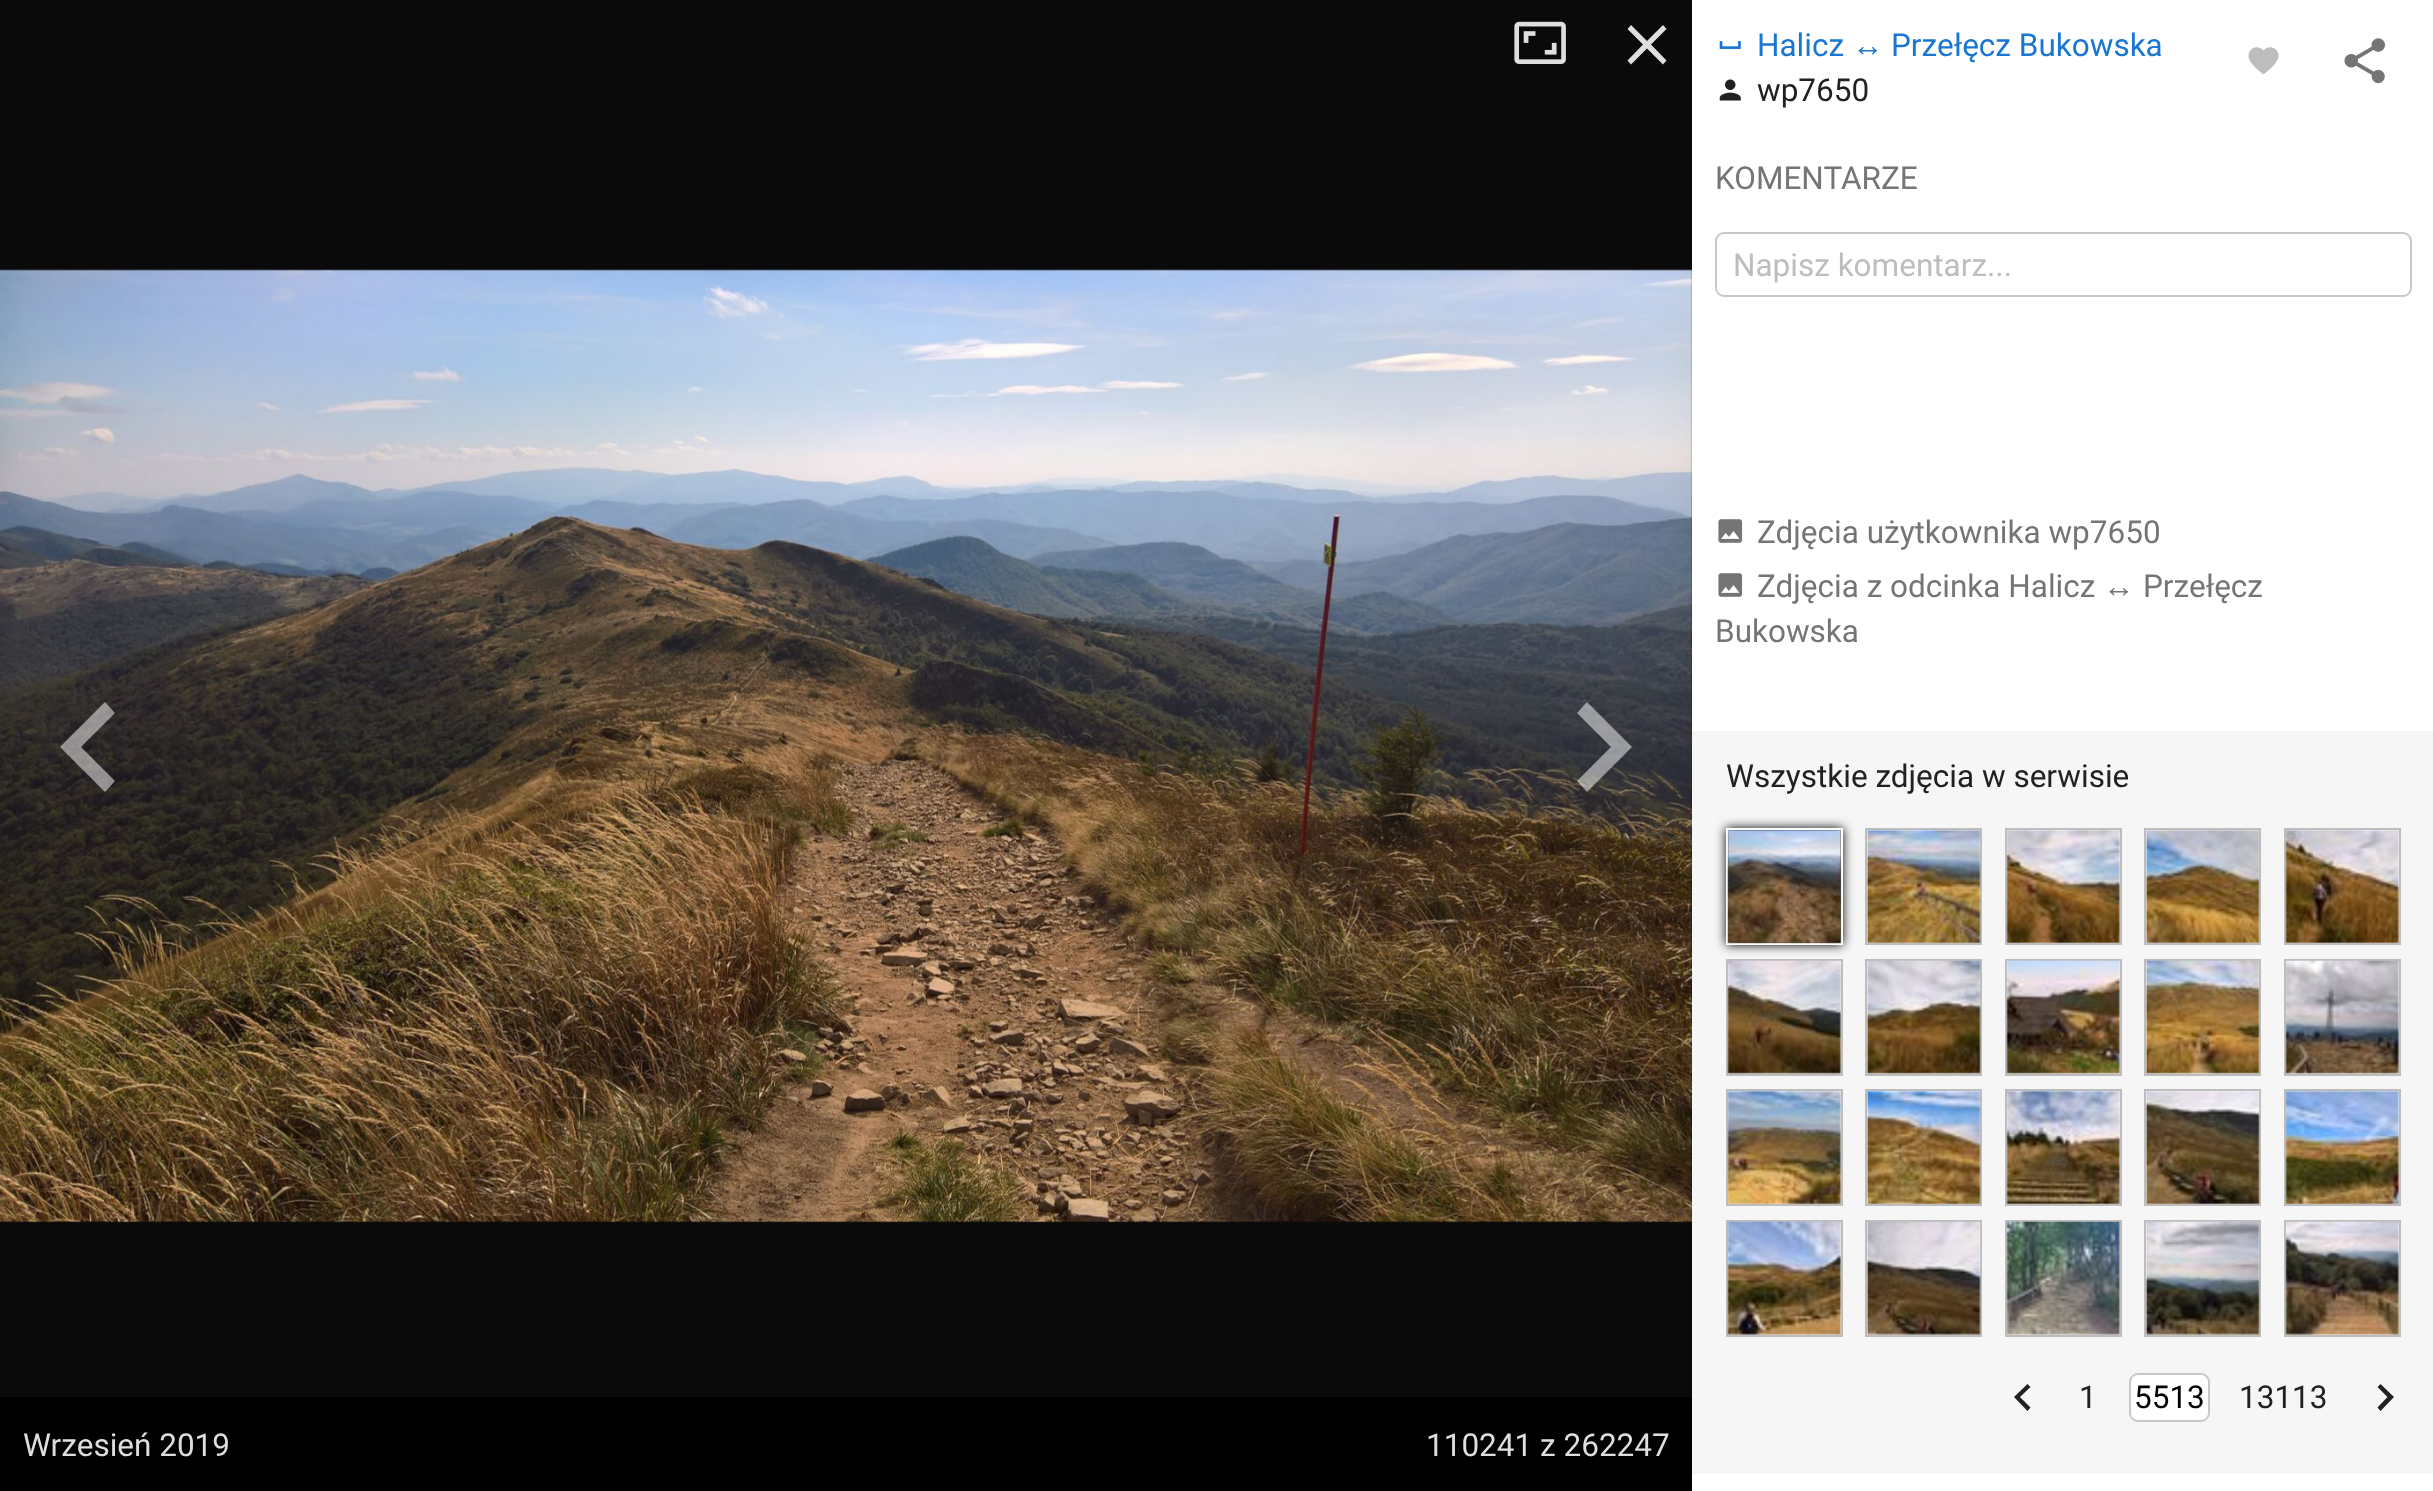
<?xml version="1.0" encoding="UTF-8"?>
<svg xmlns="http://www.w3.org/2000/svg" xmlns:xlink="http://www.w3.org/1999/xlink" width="2433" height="1491">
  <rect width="100%" height="100%" fill="#0a0a0a" />
  <rect x="1692" width="741" height="1491" fill="#ffffff" />
  <image x="1719" y="41" width="22" height="8" xlink:href="image1.png" />
  <image x="1719" y="79" width="22" height="22" xlink:href="image2.png" />
  <path d="M 2263.5 74.5 c -4.5 -3.5 -11.5 -9 -14 -14.5 c -4.5 -9.5 7 -17.5 14 -9.5 c 6.5 -7.5 18 -0.5 14.5 8.5 c -3 6.5 -9.5 11.5 -14.5 15.5 z" fill="#bdbdbd" />
  <image x="2344" y="38" width="41" height="46" xlink:href="image3.png" />
  <rect x="1716" y="233" width="695" height="63" rx="8" fill="none" stroke="#c8c8c8" stroke-width="2" />
  <image x="1718" y="519" width="25" height="24" xlink:href="image4.png" />
  <image x="1718" y="573" width="25" height="24" xlink:href="image4.png" />
  <rect x="1692" y="731" width="741" height="743" fill="#f6f6f6" />
  <rect x="1726" y="828" width="117" height="117" fill="#000000" filter="blur(5.5px)" />
  <rect x="1727" y="829" width="115" height="115" fill="none" stroke="#ffffff" stroke-width="2" />
  <image x="1727" y="829" width="115" height="115" xlink:href="image5.png" />
  <rect x="1866" y="829" width="115" height="115" fill="none" stroke="#bdbdbd" stroke-width="2" />
  <image x="1866" y="829" width="115" height="114" xlink:href="image6.png" />
  <rect x="2006" y="829" width="115" height="115" fill="none" stroke="#bdbdbd" stroke-width="2" />
  <image x="2006" y="829" width="114" height="114" xlink:href="image7.png" />
  <rect x="2145" y="829" width="115" height="115" fill="none" stroke="#bdbdbd" stroke-width="2" />
  <image x="2145" y="830" width="115" height="113" xlink:href="image8.png" />
  <rect x="2285" y="829" width="115" height="115" fill="none" stroke="#bdbdbd" stroke-width="2" />
  <image x="2285" y="829" width="114" height="114" xlink:href="image9.png" />
  <rect x="1727" y="960" width="115" height="115" fill="none" stroke="#bdbdbd" stroke-width="2" />
  <image x="1727" y="960" width="114" height="114" xlink:href="image10.png" />
  <rect x="1866" y="960" width="115" height="115" fill="none" stroke="#bdbdbd" stroke-width="2" />
  <image x="1866" y="960" width="115" height="114" xlink:href="image11.png" />
  <rect x="2006" y="960" width="115" height="115" fill="none" stroke="#bdbdbd" stroke-width="2" />
  <image x="2006" y="960" width="114" height="114" xlink:href="image12.png" />
  <rect x="2145" y="960" width="115" height="115" fill="none" stroke="#bdbdbd" stroke-width="2" />
  <image x="2145" y="960" width="115" height="114" xlink:href="image13.png" />
  <rect x="2285" y="960" width="115" height="115" fill="none" stroke="#bdbdbd" stroke-width="2" />
  <image x="2285" y="960" width="114" height="114" xlink:href="image14.png" />
  <rect x="1727" y="1090" width="115" height="115" fill="none" stroke="#bdbdbd" stroke-width="2" />
  <image x="1727" y="1090" width="114" height="114" xlink:href="image15.png" />
  <rect x="1866" y="1090" width="115" height="115" fill="none" stroke="#bdbdbd" stroke-width="2" />
  <image x="1866" y="1090" width="115" height="114" xlink:href="image16.png" />
  <rect x="2006" y="1090" width="115" height="115" fill="none" stroke="#bdbdbd" stroke-width="2" />
  <image x="2006" y="1090" width="114" height="114" xlink:href="image17.png" />
  <rect x="2145" y="1090" width="115" height="115" fill="none" stroke="#bdbdbd" stroke-width="2" />
  <image x="2145" y="1090" width="115" height="114" xlink:href="image18.png" />
  <rect x="2285" y="1090" width="115" height="115" fill="none" stroke="#bdbdbd" stroke-width="2" />
  <image x="2285" y="1090" width="114" height="114" xlink:href="image19.png" />
  <rect x="1727" y="1221" width="115" height="115" fill="none" stroke="#bdbdbd" stroke-width="2" />
  <image x="1727" y="1221" width="114" height="114" xlink:href="image20.png" />
  <rect x="1866" y="1221" width="115" height="115" fill="none" stroke="#bdbdbd" stroke-width="2" />
  <image x="1866" y="1221" width="115" height="114" xlink:href="image21.png" />
  <rect x="2006" y="1221" width="115" height="115" fill="none" stroke="#bdbdbd" stroke-width="2" />
  <image x="2006" y="1221" width="114" height="114" xlink:href="image22.png" />
  <rect x="2145" y="1221" width="115" height="115" fill="none" stroke="#bdbdbd" stroke-width="2" />
  <image x="2145" y="1221" width="115" height="114" xlink:href="image23.png" />
  <rect x="2285" y="1221" width="115" height="115" fill="none" stroke="#bdbdbd" stroke-width="2" />
  <image x="2285" y="1221" width="114" height="114" xlink:href="image24.png" />
  <path d="M 2030.5 1407.5 l -3 3.5 l -13.5 -14 l 13.5 -13 l 3 3 l -10.5 10 z" fill="#212121" />
  <rect x="2130" y="1374" width="79" height="47" rx="8" fill="#ffffff" stroke="#c8c8c8" stroke-width="2" />
  <path d="M 2377.5 1407.5 l 10 -10.5 l -10 -10 l 3 -3 l 13.5 13 l -13.5 14 z" fill="#212121" />
  <image x="1514" y="21" width="52" height="43" xlink:href="image25.png" />
  <path d="M 1666.5 29 l -3.5 -4 l -16 16 l -16 -16 l -3.5 4 l 15.5 15.5 l -15.5 16 l 3.5 4 l 16 -16 l 16 16 l 3.5 -4 l -15.5 -16 z" fill="#dfdfdf" />
  <image x="0" y="269" width="1692" height="954" xlink:href="image26.png" />
  <path d="M 115 713 l -10 -11 l -45 45 l 45 45 l 10 -11 l -34 -34 z" fill="#ffffff" fill-opacity="0.5" />
  <path d="M 1587 702 l -10 11 l 34 34 l -34 34 l 10 11 l 45 -45 z" fill="#ffffff" fill-opacity="0.5" />
  <rect y="1397" width="1692" height="94" fill="#000000" />
  <text x="1757" y="56" style="font-family: Roboto; font-size: 31.5px; fill: #1976d2">Halicz</text>
  <text x="1891" y="56" style="font-family: Roboto; font-size: 31.5px; fill: #1976d2">Przełęcz Bukowska</text>
  <text x="1852" y="56" style="font-family: Liberation Sans; font-size: 31.5px; fill: #1976d2">↔</text>
  <text x="1757" y="101" style="font-family: Roboto; font-size: 31.5px; fill: #212121">wp7650</text>
  <text x="1715" y="189" style="font-family: Roboto; font-size: 31.5px; fill: #757575">KOMENTARZE</text>
  <text x="1733" y="276" style="font-family: Roboto; font-size: 31.5px; fill: #bdbdbd">Napisz komentarz...</text>
  <text x="1757" y="543" style="font-family: Roboto; font-size: 31.5px; fill: #757575">Zdjęcia użytkownika wp7650</text>
  <text x="1757" y="597" style="font-family: Roboto; font-size: 31.5px; fill: #757575">Zdjęcia z odcinka Halicz</text>
  <text x="2103" y="597" style="font-family: Liberation Sans; font-size: 31.5px; fill: #757575">↔</text>
  <text x="2143" y="597" style="font-family: Roboto; font-size: 31.5px; fill: #757575">Przełęcz</text>
  <text x="1715" y="642" style="font-family: Roboto; font-size: 31.5px; fill: #757575">Bukowska</text>
  <text x="1726" y="787" style="font-family: Roboto; font-size: 31.5px; fill: #212121">Wszystkie zdjęcia w serwisie</text>
  <text x="2079" y="1408" style="font-family: Roboto; font-size: 31.5px; fill: #212121">1</text>
  <text x="2134" y="1408" style="font-family: Roboto; font-size: 31.5px; fill: #000000">5513</text>
  <text x="2239" y="1408" style="font-family: Roboto; font-size: 31.5px; fill: #212121">13113</text>
  <text x="23" y="1456" style="font-family: Roboto; font-size: 31.5px; fill: #dedede">Wrzesień 2019</text>
  <text x="1426" y="1456" style="font-family: Roboto; font-size: 31.5px; fill: #dedede">110241 z 262247</text>
</svg>
